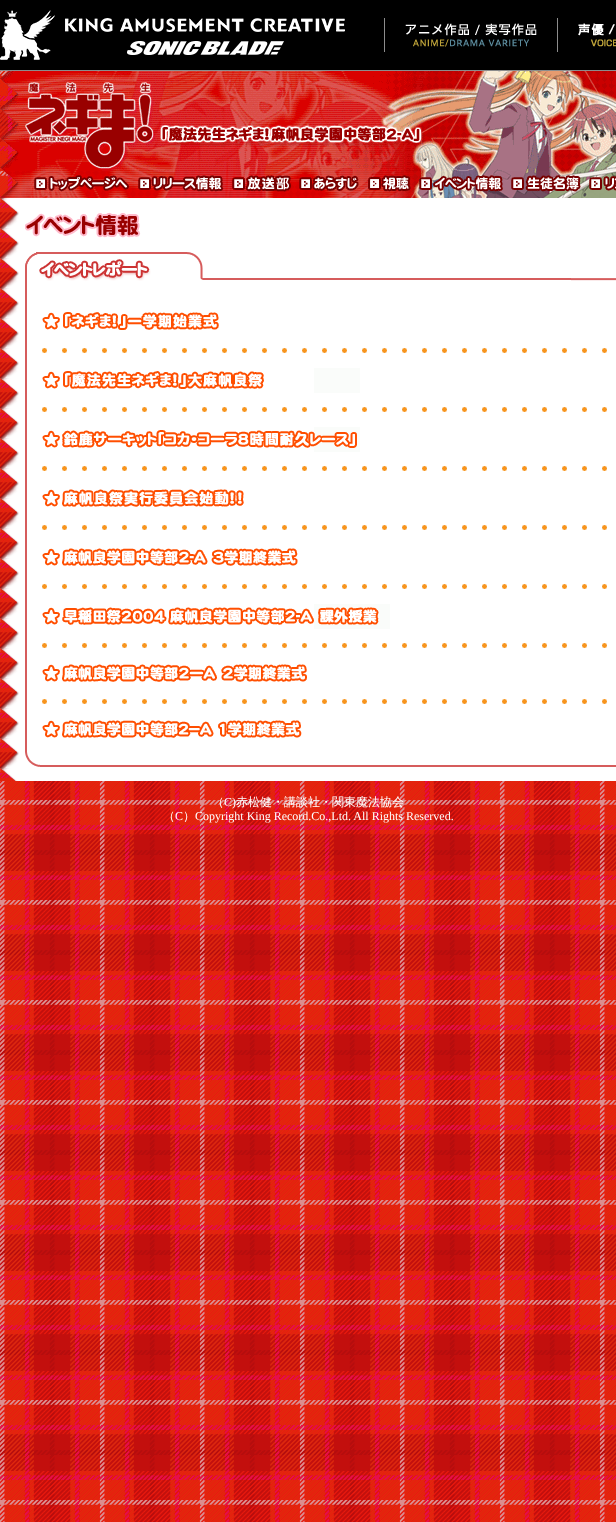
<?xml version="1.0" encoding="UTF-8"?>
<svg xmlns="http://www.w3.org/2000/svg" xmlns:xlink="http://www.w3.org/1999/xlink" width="616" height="1522">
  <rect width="100%" height="100%" fill="#ffffff" />
  <image x="0" y="781" width="616" height="741" xlink:href="image1.png" />
  <rect width="616" height="70" fill="#000000" />
  <rect y="70" width="616" height="1" fill="#8c8c8c" />
  <image x="0" y="10" width="345" height="50" xlink:href="image2.png" />
  <rect x="384" y="18" width="1" height="34" fill="#8c8c8c" />
  <image x="405" y="23" width="132" height="24" xlink:href="image3.png" />
  <rect x="557" y="18" width="1" height="34" fill="#8c8c8c" />
  <image x="578" y="23" width="38" height="24" xlink:href="image4.png" />
  <image x="0" y="71" width="616" height="100" xlink:href="image5.png" />
  <image x="0" y="171" width="27" height="27" xlink:href="image6.png" />
  <image x="27" y="171" width="106" height="27" xlink:href="image7.png" />
  <image x="133" y="171" width="94" height="27" xlink:href="image8.png" />
  <image x="227" y="171" width="68" height="27" xlink:href="image9.png" />
  <image x="295" y="171" width="68" height="27" xlink:href="image10.png" />
  <image x="363" y="171" width="51" height="27" xlink:href="image11.png" />
  <image x="414" y="171" width="93" height="27" xlink:href="image12.png" />
  <image x="507" y="171" width="77" height="27" xlink:href="image13.png" />
  <image x="584" y="171" width="32" height="27" xlink:href="image14.png" />
  <image x="0" y="198" width="616" height="583" xlink:href="image15.png" />
  <image x="25" y="212" width="116" height="26" xlink:href="image16.png" />
  <image x="25" y="252" width="591" height="47" xlink:href="image17.png" />
  <rect x="25" y="299" width="2" height="453" fill="#d65c5c" />
  <image x="42" y="312" width="177" height="18" xlink:href="image18.png" />
  <image x="42" y="348" width="565" height="5" xlink:href="image19.png" />
  <image x="42" y="368" width="318" height="25" xlink:href="image20.png" />
  <image x="42" y="407" width="565" height="5" xlink:href="image19.png" />
  <image x="42" y="427" width="318" height="25" xlink:href="image21.png" />
  <image x="42" y="466" width="565" height="5" xlink:href="image19.png" />
  <image x="42" y="489" width="202" height="18" xlink:href="image22.png" />
  <image x="42" y="525" width="565" height="5" xlink:href="image19.png" />
  <image x="42" y="548" width="256" height="18" xlink:href="image23.png" />
  <image x="42" y="584" width="565" height="5" xlink:href="image19.png" />
  <image x="42" y="604" width="348" height="25" xlink:href="image24.png" />
  <image x="42" y="643" width="565" height="5" xlink:href="image19.png" />
  <image x="42" y="664" width="265" height="18" xlink:href="image25.png" />
  <image x="42" y="699" width="565" height="5" xlink:href="image19.png" />
  <image x="42" y="720" width="260" height="18" xlink:href="image26.png" />
  <image x="25" y="752" width="15" height="15" xlink:href="image27.png" />
  <rect x="40" y="765" width="576" height="2" fill="#d65c5c" />
  <text x="212" y="806" style="font-family: WenQuanYi Zen Hei; font-size: 12px; font-weight: 500; fill: #ffffff">（</text>
  <text x="224" y="806" style="font-family: Liberation Serif; font-size: 12px; fill: #ffffff">C)</text>
  <text x="236" y="806" style="font-family: WenQuanYi Zen Hei; font-size: 12px; font-weight: 500; fill: #ffffff">赤松健・講談社・関東魔法協会</text>
  <text x="163" y="820" style="font-family: WenQuanYi Zen Hei; font-size: 12px; font-weight: 500; fill: #ffffff">（</text>
  <text x="175" y="820" style="font-family: Liberation Serif; font-size: 12px; fill: #ffffff">C</text>
  <text x="183" y="820" style="font-family: WenQuanYi Zen Hei; font-size: 12px; font-weight: 500; fill: #ffffff">）</text>
  <text x="195" y="820" style="font-family: Liberation Serif; font-size: 12px; fill: #ffffff">Copyright King Record.Co.,Ltd. All Rights Reserved.</text>
</svg>
